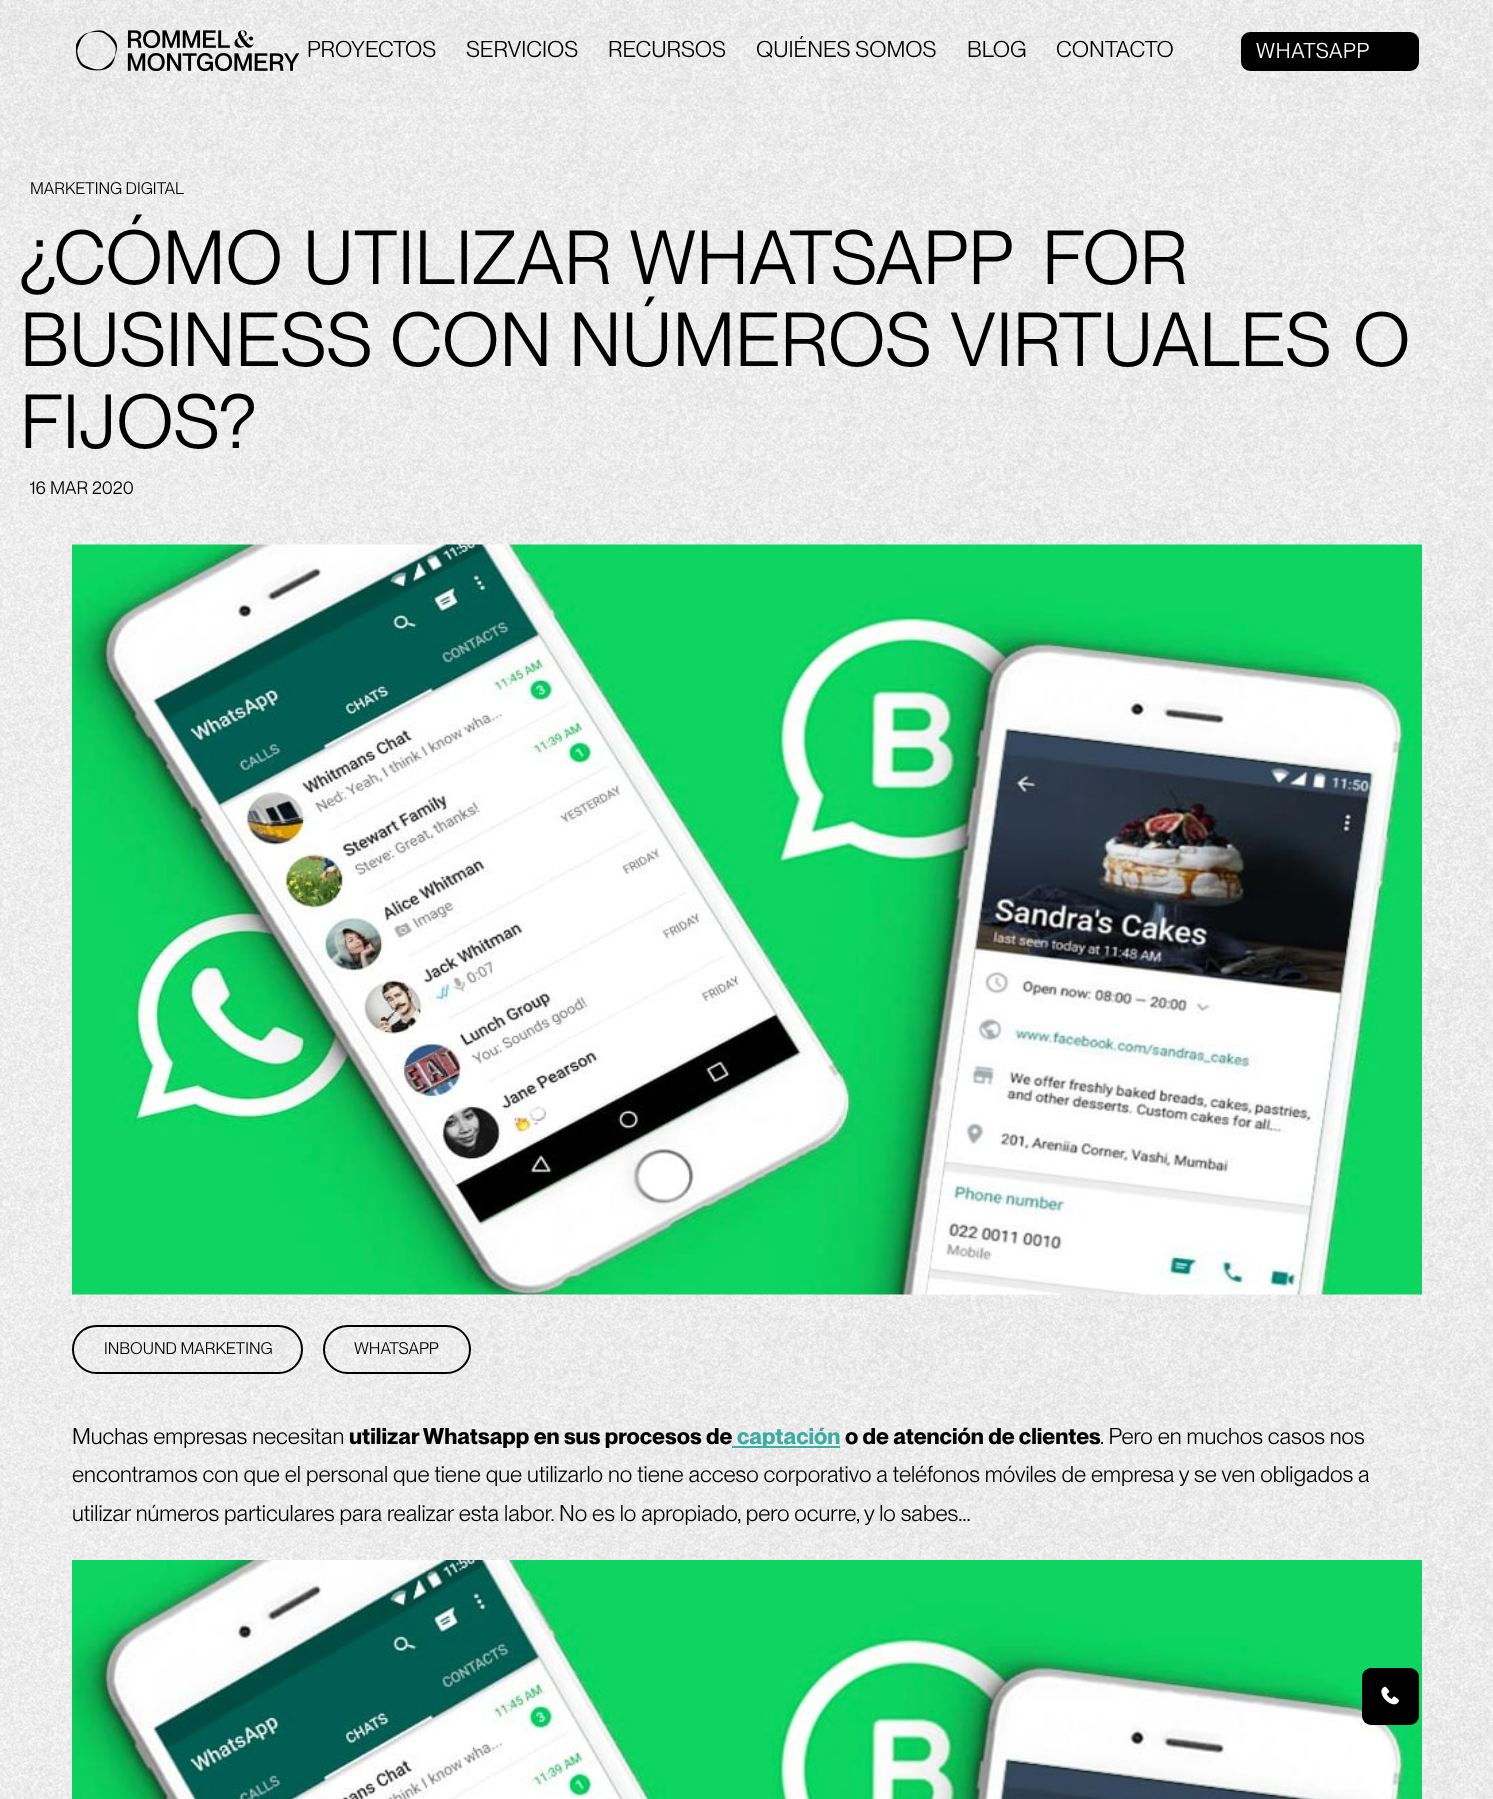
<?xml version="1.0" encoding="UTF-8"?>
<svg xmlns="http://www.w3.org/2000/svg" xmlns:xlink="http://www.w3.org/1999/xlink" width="1493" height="1799">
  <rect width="100%" height="100%" fill="#ffffff" />
  <image x="0" y="0" width="1493" height="1799" xlink:href="image1.png" />
  <image x="0" y="0" width="1493" height="1799" xlink:href="image2.png" />
  <image x="76" y="30" width="223" height="41" xlink:href="image3.png" />
  <rect x="1241" y="32" width="178" height="39" rx="9" fill="#000000" />
  <image x="72" y="1560" width="1350" height="239" xlink:href="image6.png" />
  <rect x="1362" y="1668" width="57" height="57" rx="9" fill="#000000" />
  <image x="1381" y="1686" width="18" height="19" xlink:href="image4.png" />
  <image x="72" y="544" width="1350" height="751" xlink:href="image5.png" />
  <rect x="73" y="1326" width="229" height="47" rx="23.5" fill="none" stroke="#000000" stroke-width="2" />
  <rect x="324" y="1326" width="146" height="47" rx="23.5" fill="none" stroke="#000000" stroke-width="2" />
  <text x="307" y="57" style="font-family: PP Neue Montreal; font-size: 22.5px; fill: #000000">PROYECTOS</text>
  <text x="466" y="57" style="font-family: PP Neue Montreal; font-size: 22.5px; fill: #000000">SERVICIOS</text>
  <text x="608" y="57" style="font-family: PP Neue Montreal; font-size: 22.5px; fill: #000000">RECURSOS</text>
  <text x="756" y="57" style="font-family: PP Neue Montreal; font-size: 22.5px; fill: #000000">QUIÉNES SOMOS</text>
  <text x="967" y="57" style="font-family: PP Neue Montreal; font-size: 22.5px; fill: #000000">BLOG</text>
  <text x="1056" y="57" style="font-family: PP Neue Montreal; font-size: 22.5px; fill: #000000">CONTACTO</text>
  <text x="1256" y="58" style="font-family: PP Neue Montreal; font-size: 21px; letter-spacing: 0.75px; fill: #ffffff">WHATSAPP</text>
  <text x="30" y="194" style="font-family: PP Neue Montreal; font-size: 16.5px; fill: #000000">MARKETING DIGITAL</text>
  <text x="20" y="284" style="font-family: PP Neue Montreal; font-size: 74.75px; fill: #000000">¿CÓMO</text>
  <text x="303" y="284" style="font-family: PP Neue Montreal; font-size: 74.75px; fill: #000000">UTILIZAR</text>
  <text x="629" y="284" style="font-family: PP Neue Montreal; font-size: 74.75px; fill: #000000">WHATSAPP</text>
  <text x="1042" y="284" style="font-family: PP Neue Montreal; font-size: 74.75px; fill: #000000">FOR</text>
  <text x="20" y="366" style="font-family: PP Neue Montreal; font-size: 74.75px; fill: #000000">BUSINESS</text>
  <text x="390" y="366" style="font-family: PP Neue Montreal; font-size: 74.75px; fill: #000000">CON</text>
  <text x="569" y="366" style="font-family: PP Neue Montreal; font-size: 74.75px; fill: #000000">NÚMEROS</text>
  <text x="950" y="366" style="font-family: PP Neue Montreal; font-size: 74.75px; fill: #000000">VIRTUALES</text>
  <text x="1353" y="366" style="font-family: PP Neue Montreal; font-size: 74.75px; fill: #000000">O</text>
  <text x="20" y="448" style="font-family: PP Neue Montreal; font-size: 74.75px; fill: #000000">FIJOS?</text>
  <text x="30" y="494" style="font-family: PP Neue Montreal; font-size: 18px; fill: #000000">16 MAR 2020</text>
  <text x="104" y="1354" style="font-family: PP Neue Montreal; font-size: 16.5px; fill: #000000">INBOUND MARKETING</text>
  <text x="354" y="1354" style="font-family: PP Neue Montreal; font-size: 16.5px; fill: #000000">WHATSAPP</text>
  <text x="72" y="1444" style="font-family: PP Neue Montreal; font-size: 22.5px; fill: #000000">Muchas empresas necesitan</text>
  <text x="349" y="1444" style="font-family: PP Neue Montreal; font-size: 22.5px; font-weight: bold; fill: #000000">utilizar Whatsapp en sus procesos de</text>
  <rect x="732" y="1446" width="108" height="2" fill="#3daca3" />
  <text x="737" y="1444" style="font-family: PP Neue Montreal; font-size: 22.5px; font-weight: bold; fill: #3daca3">captación</text>
  <text x="845" y="1444" style="font-family: PP Neue Montreal; font-size: 22.5px; font-weight: bold; fill: #000000">o de atención de clientes</text>
  <text x="1100" y="1444" style="font-family: PP Neue Montreal; font-size: 22.5px; fill: #000000">. Pero en muchos casos nos</text>
  <text x="72" y="1482" style="font-family: PP Neue Montreal; font-size: 22.5px; fill: #000000">encontramos con que el personal que tiene que utilizarlo no tiene acceso corporativo a teléfonos móviles de empresa y se ven obligados a</text>
  <text x="72" y="1521" style="font-family: PP Neue Montreal; font-size: 22.5px; fill: #000000">utilizar números particulares para realizar esta labor. No es lo apropiado, pero ocurre, y lo sabes…</text>
</svg>
